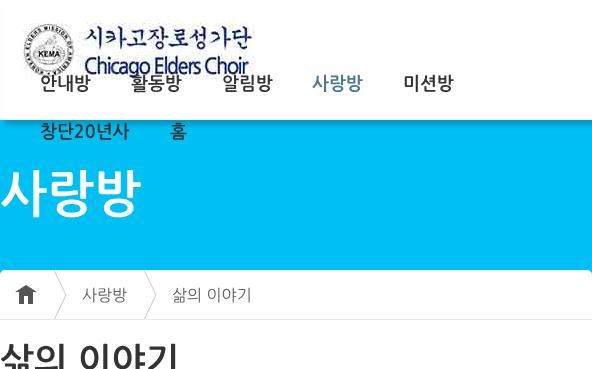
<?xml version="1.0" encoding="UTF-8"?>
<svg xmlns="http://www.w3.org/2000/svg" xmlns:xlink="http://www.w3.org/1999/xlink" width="592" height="369">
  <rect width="100%" height="100%" fill="#ffffff" />
  <rect y="120" width="592" height="155" fill="#00bff3" />
  <rect x="5" y="5" width="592" height="120" fill="#000000" fill-opacity="0.2" filter="blur(2.5px)" />
  <rect x="1" y="1" width="591" height="119" fill="#ffffff" />
  <image x="23" y="15" width="232" height="65" xlink:href="image1.png" />
  <path d="M 5 270 h 582 c 3 0 5 2 5 5 v 45 h -592 v -45 c 0 -3 2 -5 5 -5 z" fill="#ffffff" />
  <rect y="319" width="592" height="1" fill="#e7e7e7" />
  <image x="53" y="270" width="14" height="49" xlink:href="image2.png" />
  <image x="15" y="285" width="22" height="19" xlink:href="image3.png" />
  <image x="143" y="270" width="14" height="49" xlink:href="image2.png" />
  <text x="40" y="90" style="font-family: NanumGothic; font-size: 18px; font-weight: bold; fill: #333333">안내방</text>
  <text x="131" y="90" style="font-family: NanumGothic; font-size: 18px; font-weight: bold; fill: #333333">활동방</text>
  <text x="222" y="90" style="font-family: NanumGothic; font-size: 18px; font-weight: bold; fill: #333333">알림방</text>
  <text x="312" y="90" style="font-family: NanumGothic; font-size: 18px; font-weight: bold; fill: #4b778d">사랑방</text>
  <text x="403" y="90" style="font-family: NanumGothic; font-size: 18px; font-weight: bold; fill: #333333">미션방</text>
  <text x="40" y="138" style="font-family: NanumGothic; font-size: 18px; font-weight: bold; fill: #333333">창단20년사</text>
  <text x="170" y="138" style="font-family: NanumGothic; font-size: 18px; font-weight: bold; fill: #333333">홈</text>
  <text x="0" y="212" style="font-family: NanumGothic; font-size: 50px; font-weight: bold; fill: #ffffff">사랑방</text>
  <text x="82" y="301" style="font-family: NanumGothic; font-size: 16px; fill: #5d5d5d">사랑방</text>
  <text x="172" y="301" style="font-family: NanumGothic; font-size: 16px; fill: #5d5d5d">삶의 이야기</text>
  <text x="0" y="374" style="font-family: NanumGothic; font-size: 36px; font-weight: bold; fill: #333333">삶의 이야기</text>
</svg>
